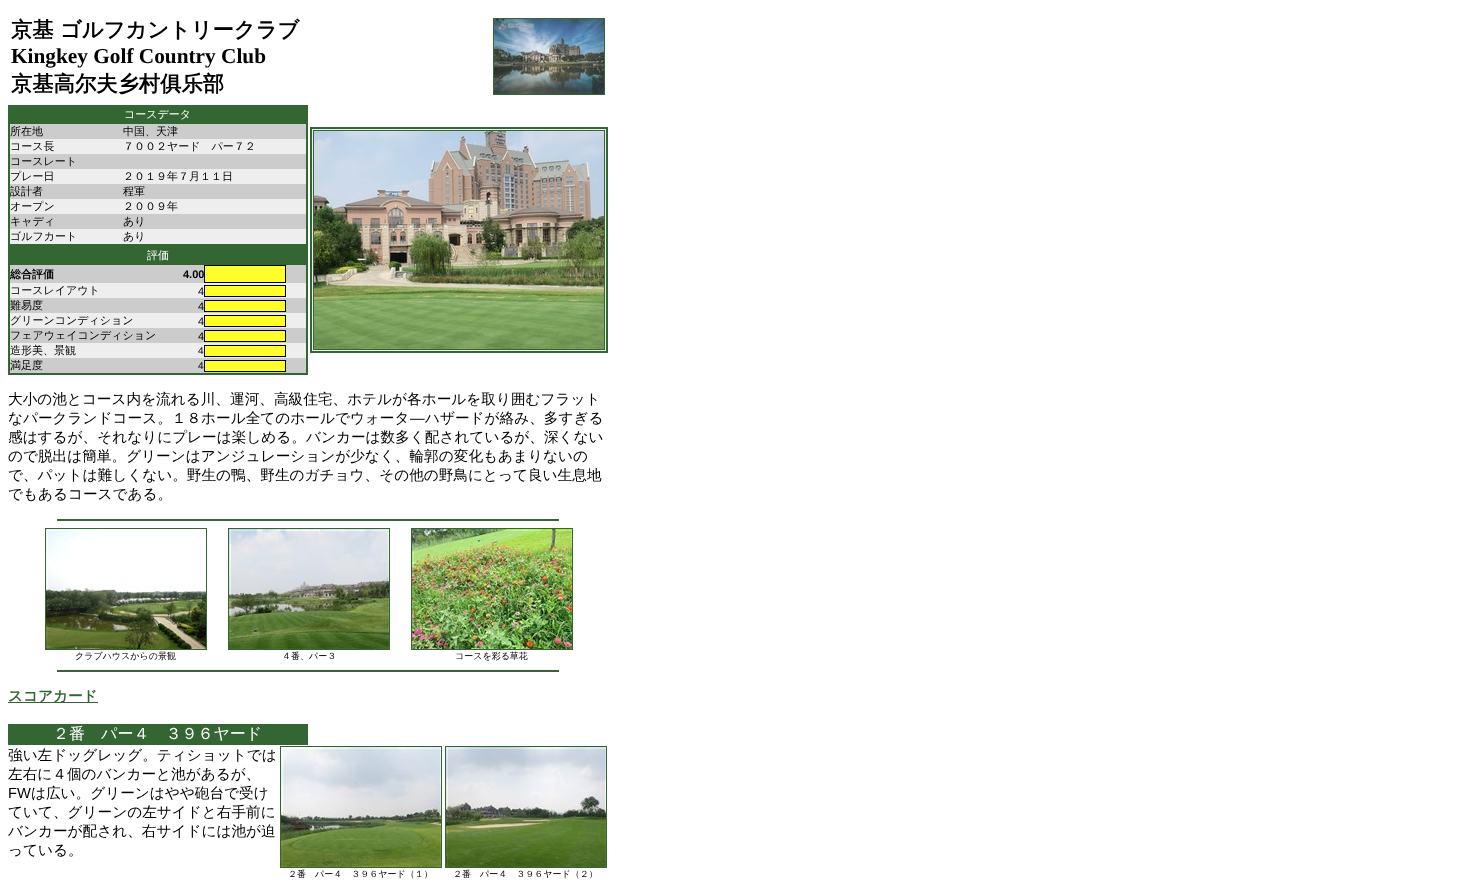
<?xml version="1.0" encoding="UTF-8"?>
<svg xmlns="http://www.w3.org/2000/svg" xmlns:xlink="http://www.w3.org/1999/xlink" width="1457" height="882">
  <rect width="100%" height="100%" fill="#ffffff" />
  <rect x="493.5" y="18.5" width="111" height="76" fill="none" stroke="#336633" />
  <image x="494" y="19" width="110" height="75" xlink:href="image1.png" />
  <rect x="8.5" y="105.5" width="299" height="140" fill="none" stroke="#336633" />
  <rect x="9" y="106" width="298" height="17" fill="#336633" />
  <rect x="9.5" y="123.5" width="297" height="121" fill="none" stroke="#336633" />
  <rect x="10" y="124" width="296" height="15" fill="#cccccc" />
  <rect x="10" y="139" width="296" height="15" fill="#eeeeee" />
  <rect x="10" y="154" width="296" height="15" fill="#cccccc" />
  <rect x="10" y="169" width="296" height="15" fill="#eeeeee" />
  <rect x="10" y="184" width="296" height="15" fill="#cccccc" />
  <rect x="10" y="199" width="296" height="15" fill="#eeeeee" />
  <rect x="10" y="214" width="296" height="15" fill="#cccccc" />
  <rect x="10" y="229" width="296" height="15" fill="#eeeeee" />
  <rect x="8.5" y="246.5" width="299" height="128" fill="none" stroke="#336633" />
  <rect x="9" y="247" width="298" height="17" fill="#336633" />
  <rect x="9.5" y="264.5" width="297" height="109" fill="none" stroke="#336633" />
  <rect x="10" y="265" width="296" height="18" fill="#cccccc" />
  <rect x="204.5" y="265.5" width="81" height="17" fill="none" stroke="#000000" />
  <rect x="205" y="266" width="80" height="16" fill="#ffff29" />
  <rect x="10" y="283" width="296" height="15" fill="#eeeeee" />
  <rect x="204.5" y="285.5" width="81" height="11" fill="none" stroke="#000000" />
  <rect x="205" y="286" width="80" height="10" fill="#ffff29" />
  <rect x="10" y="298" width="296" height="15" fill="#cccccc" />
  <rect x="204.5" y="300.5" width="81" height="11" fill="none" stroke="#000000" />
  <rect x="205" y="301" width="80" height="10" fill="#ffff29" />
  <rect x="10" y="313" width="296" height="15" fill="#eeeeee" />
  <rect x="204.5" y="315.5" width="81" height="11" fill="none" stroke="#000000" />
  <rect x="205" y="316" width="80" height="10" fill="#ffff29" />
  <rect x="10" y="328" width="296" height="15" fill="#cccccc" />
  <rect x="204.5" y="330.5" width="81" height="11" fill="none" stroke="#000000" />
  <rect x="205" y="331" width="80" height="10" fill="#ffff29" />
  <rect x="10" y="343" width="296" height="15" fill="#eeeeee" />
  <rect x="204.5" y="345.5" width="81" height="11" fill="none" stroke="#000000" />
  <rect x="205" y="346" width="80" height="10" fill="#ffff29" />
  <rect x="10" y="358" width="296" height="15" fill="#cccccc" />
  <rect x="204.5" y="360.5" width="81" height="11" fill="none" stroke="#000000" />
  <rect x="205" y="361" width="80" height="10" fill="#ffff29" />
  <rect x="310.5" y="127.5" width="297" height="225" fill="none" stroke="#336633" />
  <rect x="311.5" y="128.5" width="295" height="223" fill="#eeeeee" stroke="#336633" />
  <rect x="313.5" y="130.5" width="291" height="219" fill="none" stroke="#336633" />
  <image x="314" y="131" width="290" height="218" xlink:href="image2.png" />
  <rect x="57" y="519" width="502" height="2" fill="#336633" />
  <rect x="45.5" y="528.5" width="161" height="121" fill="none" stroke="#336633" />
  <image x="46" y="529" width="160" height="120" xlink:href="image3.png" />
  <rect x="228.5" y="528.5" width="161" height="121" fill="none" stroke="#336633" />
  <image x="229" y="529" width="160" height="120" xlink:href="image4.png" />
  <rect x="411.5" y="528.5" width="161" height="121" fill="none" stroke="#336633" />
  <image x="412" y="529" width="160" height="120" xlink:href="image5.png" />
  <rect x="57" y="670" width="502" height="2" fill="#336633" />
  <rect x="8" y="702" width="90" height="1" fill="#336633" />
  <rect x="8" y="724" width="300" height="21" fill="#336633" />
  <rect x="280.5" y="746.5" width="161" height="121" fill="none" stroke="#336633" />
  <image x="281" y="747" width="160" height="120" xlink:href="image6.png" />
  <rect x="445.5" y="746.5" width="161" height="121" fill="none" stroke="#336633" />
  <image x="446" y="747" width="160" height="120" xlink:href="image7.png" />
  <text x="11" y="37" style="font-family: WenQuanYi Zen Hei; font-size: 21.3px; font-weight: bold; fill: #000000">京基 ゴルフカントリークラブ</text>
  <text x="11" y="63" style="font-family: Liberation Serif; font-size: 21.3px; font-weight: bold; fill: #000000">Kingkey Golf Country Club</text>
  <text x="11" y="91" style="font-family: WenQuanYi Zen Hei; font-size: 21.3px; font-weight: bold; fill: #000000">京基高尔夫乡村俱乐部</text>
  <text x="124" y="118" style="font-family: WenQuanYi Zen Hei; font-size: 11px; font-weight: 500; fill: #ffffff">コースデータ</text>
  <text x="10" y="135" style="font-family: WenQuanYi Zen Hei; font-size: 11px; font-weight: 500; fill: #000000">所在地</text>
  <text x="123" y="135" style="font-family: WenQuanYi Zen Hei; font-size: 11px; font-weight: 500; fill: #000000">中国、天津</text>
  <text x="10" y="150" style="font-family: WenQuanYi Zen Hei; font-size: 11px; font-weight: 500; fill: #000000">コース長</text>
  <text x="123" y="150" style="font-family: WenQuanYi Zen Hei; font-size: 11px; font-weight: 500; fill: #000000">７００２ヤード　パー７２</text>
  <text x="10" y="165" style="font-family: WenQuanYi Zen Hei; font-size: 11px; font-weight: 500; fill: #000000">コースレート</text>
  <text x="10" y="180" style="font-family: WenQuanYi Zen Hei; font-size: 11px; font-weight: 500; fill: #000000">プレー日</text>
  <text x="123" y="180" style="font-family: WenQuanYi Zen Hei; font-size: 11px; font-weight: 500; fill: #000000">２０１９年７月１１日</text>
  <text x="10" y="195" style="font-family: WenQuanYi Zen Hei; font-size: 11px; font-weight: 500; fill: #000000">設計者</text>
  <text x="123" y="195" style="font-family: WenQuanYi Zen Hei; font-size: 11px; font-weight: 500; fill: #000000">程軍</text>
  <text x="10" y="210" style="font-family: WenQuanYi Zen Hei; font-size: 11px; font-weight: 500; fill: #000000">オープン</text>
  <text x="123" y="210" style="font-family: WenQuanYi Zen Hei; font-size: 11px; font-weight: 500; fill: #000000">２００９年</text>
  <text x="10" y="225" style="font-family: WenQuanYi Zen Hei; font-size: 11px; font-weight: 500; fill: #000000">キャディ</text>
  <text x="123" y="225" style="font-family: WenQuanYi Zen Hei; font-size: 11px; font-weight: 500; fill: #000000">あり</text>
  <text x="10" y="240" style="font-family: WenQuanYi Zen Hei; font-size: 11px; font-weight: 500; fill: #000000">ゴルフカート</text>
  <text x="123" y="240" style="font-family: WenQuanYi Zen Hei; font-size: 11px; font-weight: 500; fill: #000000">あり</text>
  <text x="147" y="259" style="font-family: WenQuanYi Zen Hei; font-size: 11px; font-weight: 500; fill: #ffffff">評価</text>
  <text x="10" y="278" style="font-family: WenQuanYi Zen Hei; font-size: 11px; font-weight: bold; fill: #000000">総合評価</text>
  <text x="183" y="278" style="font-family: Liberation Sans; font-size: 11px; font-weight: bold; fill: #000000">4.00</text>
  <text x="10" y="294" style="font-family: WenQuanYi Zen Hei; font-size: 11px; font-weight: 500; fill: #000000">コースレイアウト</text>
  <text x="198" y="295" style="font-family: Liberation Sans; font-size: 11px; fill: #000000">4</text>
  <text x="10" y="309" style="font-family: WenQuanYi Zen Hei; font-size: 11px; font-weight: 500; fill: #000000">難易度</text>
  <text x="198" y="310" style="font-family: Liberation Sans; font-size: 11px; fill: #000000">4</text>
  <text x="10" y="324" style="font-family: WenQuanYi Zen Hei; font-size: 11px; font-weight: 500; fill: #000000">グリーンコンディション</text>
  <text x="198" y="325" style="font-family: Liberation Sans; font-size: 11px; fill: #000000">4</text>
  <text x="10" y="339" style="font-family: WenQuanYi Zen Hei; font-size: 11px; font-weight: 500; fill: #000000">フェアウェイコンディション</text>
  <text x="198" y="340" style="font-family: Liberation Sans; font-size: 11px; fill: #000000">4</text>
  <text x="10" y="354" style="font-family: WenQuanYi Zen Hei; font-size: 11px; font-weight: 500; fill: #000000">造形美、景観</text>
  <text x="198" y="354" style="font-family: Liberation Sans; font-size: 10px; fill: #000000">4</text>
  <text x="10" y="369" style="font-family: WenQuanYi Zen Hei; font-size: 11px; font-weight: 500; fill: #000000">満足度</text>
  <text x="198" y="369" style="font-family: Liberation Sans; font-size: 10px; fill: #000000">4</text>
  <text x="8" y="404" style="font-family: WenQuanYi Zen Hei; font-size: 14.65px; font-weight: 500; fill: #000000">大小の池とコース内を流れる川、運河、高級住宅、ホテルが各ホールを取り囲むフラット</text>
  <text x="8" y="423" style="font-family: WenQuanYi Zen Hei; font-size: 14.65px; font-weight: 500; fill: #000000">なパークランドコース。１８ホール全てのホールでウォータ</text>
  <text x="410" y="423" style="font-family: Liberation Sans; font-size: 14.65px; fill: #000000">―</text>
  <text x="425" y="423" style="font-family: WenQuanYi Zen Hei; font-size: 14.65px; font-weight: 500; fill: #000000">ハザードが絡み、多すぎる</text>
  <text x="8" y="442" style="font-family: WenQuanYi Zen Hei; font-size: 14.65px; font-weight: 500; fill: #000000">感はするが、それなりにプレーは楽しめる。バンカーは数多く配されているが、深くない</text>
  <text x="8" y="461" style="font-family: WenQuanYi Zen Hei; font-size: 14.65px; font-weight: 500; fill: #000000">ので脱出は簡単。グリーンはアンジュレーションが少なく、輪郭の変化もあまりないの</text>
  <text x="8" y="480" style="font-family: WenQuanYi Zen Hei; font-size: 14.65px; font-weight: 500; fill: #000000">で、パットは難しくない。野生の鴨、野生のガチョウ、その他の野鳥にとって良い生息地</text>
  <text x="8" y="499" style="font-family: WenQuanYi Zen Hei; font-size: 14.65px; font-weight: 500; fill: #000000">でもあるコースである。</text>
  <text x="75" y="659" style="font-family: WenQuanYi Zen Hei; font-size: 9px; font-weight: 500; fill: #000000">クラブハウスからの景観</text>
  <text x="282" y="659" style="font-family: WenQuanYi Zen Hei; font-size: 9px; font-weight: 500; fill: #000000">４番、パー３</text>
  <text x="455" y="659" style="font-family: WenQuanYi Zen Hei; font-size: 9px; font-weight: 500; fill: #000000">コースを彩る草花</text>
  <text x="8" y="701" style="font-family: WenQuanYi Zen Hei; font-size: 14.65px; font-weight: bold; fill: #336633">スコアカード</text>
  <text x="53" y="739" style="font-family: WenQuanYi Zen Hei; font-size: 16px; font-weight: 500; fill: #ffffff">２番　パー４　３９６ヤード</text>
  <text x="8" y="760" style="font-family: WenQuanYi Zen Hei; font-size: 14.65px; font-weight: 500; fill: #000000">強い左ドッグレッグ。ティショットでは</text>
  <text x="8" y="779" style="font-family: WenQuanYi Zen Hei; font-size: 14.65px; font-weight: 500; fill: #000000">左右に４個のバンカーと池があるが、</text>
  <text x="8" y="798" style="font-family: Liberation Sans; font-size: 14.65px; fill: #000000">FW</text>
  <text x="31" y="798" style="font-family: WenQuanYi Zen Hei; font-size: 14.65px; font-weight: 500; fill: #000000">は広い。グリーンはやや砲台で受け</text>
  <text x="8" y="817" style="font-family: WenQuanYi Zen Hei; font-size: 14.65px; font-weight: 500; fill: #000000">ていて、グリーンの左サイドと右手前に</text>
  <text x="8" y="836" style="font-family: WenQuanYi Zen Hei; font-size: 14.65px; font-weight: 500; fill: #000000">バンカーが配され、右サイドには池が迫</text>
  <text x="8" y="855" style="font-family: WenQuanYi Zen Hei; font-size: 14.65px; font-weight: 500; fill: #000000">っている。</text>
  <text x="288" y="877" style="font-family: WenQuanYi Zen Hei; font-size: 9px; font-weight: 500; fill: #000000">２番　パー４　３９６ヤード（１）</text>
  <text x="453" y="877" style="font-family: WenQuanYi Zen Hei; font-size: 9px; font-weight: 500; fill: #000000">２番　パー４　３９６ヤード（２）</text>
</svg>
